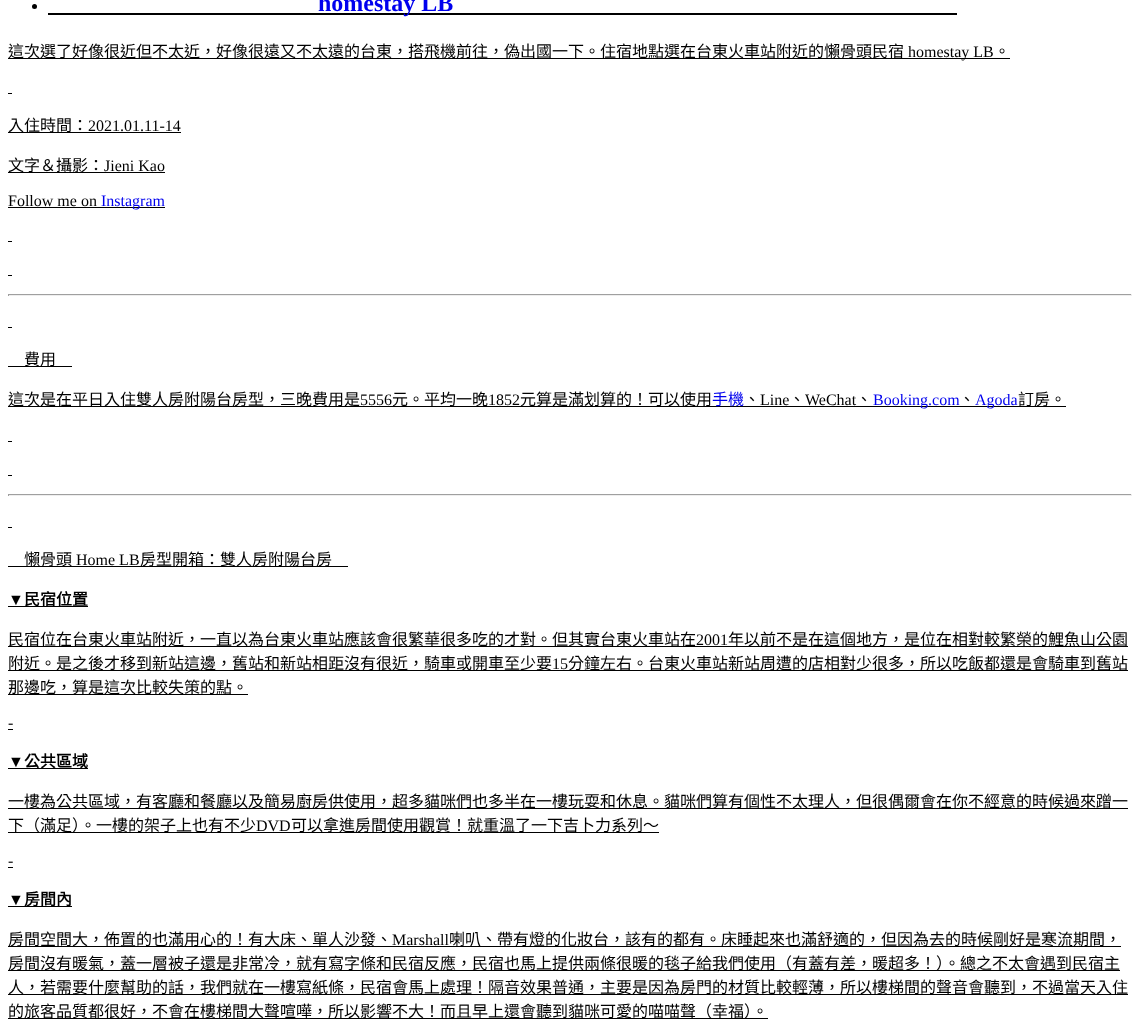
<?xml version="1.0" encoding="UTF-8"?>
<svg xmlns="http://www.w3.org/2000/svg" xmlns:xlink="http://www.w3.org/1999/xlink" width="1140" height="1026">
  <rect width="100%" height="100%" fill="#ffffff" />
  <circle cx="34.5" cy="6.5" r="2.5" fill="#000000" />
  <rect x="48" y="13" width="909" height="2" fill="#000000" />
  <rect x="8" y="58" width="1002" height="1" fill="#000000" />
  <rect x="8" y="93" width="4" height="1" fill="#000000" />
  <rect x="8" y="132" width="173" height="1" fill="#000000" />
  <rect x="8" y="172" width="157" height="1" fill="#000000" />
  <rect x="8" y="207" width="157" height="1" fill="#000000" />
  <rect x="8" y="241" width="4" height="1" fill="#000000" />
  <rect x="8" y="275" width="4" height="1" fill="#000000" />
  <rect x="8" y="294" width="1124" height="1" fill="#9f9f9f" />
  <rect x="1131" y="294" width="1" height="2" fill="#eeeeee" />
  <rect x="8" y="295" width="1124" height="1" fill="#eeeeee" />
  <rect x="8" y="294" width="1" height="2" fill="#9f9f9f" />
  <rect x="8" y="327" width="4" height="1" fill="#000000" />
  <rect x="8" y="366" width="64" height="1" fill="#000000" />
  <rect x="8" y="406" width="1058" height="1" fill="#000000" />
  <rect x="8" y="441" width="4" height="1" fill="#000000" />
  <rect x="8" y="475" width="4" height="1" fill="#000000" />
  <rect x="8" y="494" width="1124" height="1" fill="#9f9f9f" />
  <rect x="1131" y="494" width="1" height="2" fill="#eeeeee" />
  <rect x="8" y="495" width="1124" height="1" fill="#eeeeee" />
  <rect x="8" y="494" width="1" height="2" fill="#9f9f9f" />
  <rect x="8" y="527" width="4" height="1" fill="#000000" />
  <rect x="8" y="566" width="340" height="1" fill="#000000" />
  <rect x="8" y="606" width="80" height="1" fill="#000000" />
  <rect x="8" y="646" width="1120" height="1" fill="#000000" />
  <rect x="8" y="670" width="1120" height="1" fill="#000000" />
  <rect x="8" y="694" width="240" height="1" fill="#000000" />
  <rect x="8" y="729" width="5" height="1" fill="#000000" />
  <rect x="8" y="768" width="80" height="1" fill="#000000" />
  <rect x="8" y="808" width="1120" height="1" fill="#000000" />
  <rect x="8" y="832" width="651" height="1" fill="#000000" />
  <rect x="8" y="867" width="5" height="1" fill="#000000" />
  <rect x="8" y="906" width="64" height="1" fill="#000000" />
  <rect x="8" y="946" width="1113" height="1" fill="#000000" />
  <rect x="8" y="970" width="1112" height="1" fill="#000000" />
  <rect x="8" y="994" width="1120" height="1" fill="#000000" />
  <rect x="8" y="1018" width="760" height="1" fill="#000000" />
  <text x="318" y="11" style="font-family: Liberation Serif; font-size: 24px; font-weight: bold; fill: #0000ee">homestay LB</text>
  <text x="8" y="57" style="font-family: Noto Sans CJK TC; font-size: 16px; fill: #000000">這次選了好像很近但不太近，好像很遠又不太遠的台東，搭飛機前往，偽出國一下。住宿地點選在台東火車站附近的懶骨頭民宿</text>
  <text x="908" y="57" style="font-family: Liberation Serif; font-size: 16px; fill: #000000">homestay LB</text>
  <text x="994" y="57" style="font-family: Noto Sans CJK TC; font-size: 16px; fill: #000000">。</text>
  <text x="8" y="131" style="font-family: Noto Sans CJK TC; font-size: 16px; fill: #000000">入住時間：</text>
  <text x="88" y="131" style="font-family: Liberation Serif; font-size: 16px; fill: #000000">2021.01.11-14</text>
  <text x="8" y="171" style="font-family: Noto Sans CJK TC; font-size: 16px; fill: #000000">文字＆攝影：</text>
  <text x="104" y="171" style="font-family: Liberation Serif; font-size: 16px; fill: #000000">Jieni Kao</text>
  <text x="8" y="206" style="font-family: Liberation Serif; font-size: 16px; fill: #000000">Follow me on</text>
  <text x="101" y="206" style="font-family: Liberation Serif; font-size: 16px; fill: #0000ee">Instagram</text>
  <text x="24" y="365" style="font-family: Noto Sans CJK TC; font-size: 16px; fill: #000000">費用</text>
  <text x="8" y="405" style="font-family: Noto Sans CJK TC; font-size: 16px; fill: #000000">這次是在平日入住雙人房附陽台房型，三晚費用是</text>
  <text x="360" y="405" style="font-family: Liberation Serif; font-size: 16px; fill: #000000">5556</text>
  <text x="392" y="405" style="font-family: Noto Sans CJK TC; font-size: 16px; fill: #000000">元。平均一晚</text>
  <text x="488" y="405" style="font-family: Liberation Serif; font-size: 16px; fill: #000000">1852</text>
  <text x="520" y="405" style="font-family: Noto Sans CJK TC; font-size: 16px; fill: #000000">元算是滿划算的！可以使用</text>
  <text x="712" y="405" style="font-family: Noto Sans CJK TC; font-size: 16px; fill: #0000ee">手機</text>
  <text x="744" y="405" style="font-family: Noto Sans CJK TC; font-size: 16px; fill: #000000">、</text>
  <text x="760" y="405" style="font-family: Liberation Serif; font-size: 16px; fill: #000000">Line</text>
  <text x="789" y="405" style="font-family: Noto Sans CJK TC; font-size: 16px; fill: #000000">、</text>
  <text x="805" y="405" style="font-family: Liberation Serif; font-size: 16px; fill: #000000">WeChat</text>
  <text x="856" y="405" style="font-family: Noto Sans CJK TC; font-size: 16px; fill: #000000">、</text>
  <text x="873" y="405" style="font-family: Liberation Serif; font-size: 16px; fill: #0000ee">Booking.com</text>
  <text x="959" y="405" style="font-family: Noto Sans CJK TC; font-size: 16px; fill: #000000">、</text>
  <text x="975" y="405" style="font-family: Liberation Serif; font-size: 16px; fill: #0000ee">Agoda</text>
  <text x="1018" y="405" style="font-family: Noto Sans CJK TC; font-size: 16px; fill: #000000">訂房。</text>
  <text x="24" y="565" style="font-family: Noto Sans CJK TC; font-size: 16px; fill: #000000">懶骨頭</text>
  <text x="76" y="565" style="font-family: Liberation Serif; font-size: 16px; fill: #000000">Home LB</text>
  <text x="140" y="565" style="font-family: Noto Sans CJK TC; font-size: 16px; fill: #000000">房型開箱：雙人房附陽台房</text>
  <text x="8" y="605" style="font-family: Liberation Serif; font-size: 16px; font-weight: bold; fill: #000000">▼</text>
  <text x="24" y="605" style="font-family: Noto Sans CJK TC; font-size: 16px; font-weight: bold; fill: #000000">民宿位置</text>
  <text x="8" y="645" style="font-family: Noto Sans CJK TC; font-size: 16px; fill: #000000">民宿位在台東火車站附近，一直以為台東火車站應該會很繁華很多吃的才對。但其實台東火車站在</text>
  <text x="696" y="645" style="font-family: Liberation Serif; font-size: 16px; fill: #000000">2001</text>
  <text x="728" y="645" style="font-family: Noto Sans CJK TC; font-size: 16px; fill: #000000">年以前不是在這個地方，是位在相對較繁榮的鯉魚山公園</text>
  <text x="8" y="669" style="font-family: Noto Sans CJK TC; font-size: 16px; fill: #000000">附近。是之後才移到新站這邊，舊站和新站相距沒有很近，騎車或開車至少要</text>
  <text x="552" y="669" style="font-family: Liberation Serif; font-size: 16px; fill: #000000">15</text>
  <text x="568" y="669" style="font-family: Noto Sans CJK TC; font-size: 16px; fill: #000000">分鐘左右。台東火車站新站周遭的店相對少很多，所以吃飯都還是會騎車到舊站</text>
  <text x="8" y="693" style="font-family: Noto Sans CJK TC; font-size: 16px; fill: #000000">那邊吃，算是這次比較失策的點。</text>
  <text x="8" y="728" style="font-family: Liberation Serif; font-size: 16px; fill: #000000">-</text>
  <text x="8" y="767" style="font-family: Liberation Serif; font-size: 16px; font-weight: bold; fill: #000000">▼</text>
  <text x="24" y="767" style="font-family: Noto Sans CJK TC; font-size: 16px; font-weight: bold; fill: #000000">公共區域</text>
  <text x="8" y="807" style="font-family: Noto Sans CJK TC; font-size: 16px; fill: #000000">一樓為公共區域，有客廳和餐廳以及簡易廚房供使用，超多貓咪們也多半在一樓玩耍和休息。貓咪們算有個性不太理人，但很偶爾會在你不經意的時候過來蹭一</text>
  <text x="8" y="831" style="font-family: Noto Sans CJK TC; font-size: 16px; fill: #000000">下（滿足）。一樓的架子上也有不少</text>
  <text x="256" y="831" style="font-family: Liberation Serif; font-size: 16px; fill: #000000">DVD</text>
  <text x="291" y="831" style="font-family: Noto Sans CJK TC; font-size: 16px; fill: #000000">可以拿進房間使用觀賞！就重溫了一下吉卜力系列～</text>
  <text x="8" y="866" style="font-family: Liberation Serif; font-size: 16px; fill: #000000">-</text>
  <text x="8" y="905" style="font-family: Liberation Serif; font-size: 16px; font-weight: bold; fill: #000000">▼</text>
  <text x="24" y="905" style="font-family: Noto Sans CJK TC; font-size: 16px; font-weight: bold; fill: #000000">房間內</text>
  <text x="8" y="945" style="font-family: Noto Sans CJK TC; font-size: 16px; fill: #000000">房間空間大，佈置的也滿用心的！有大床、單人沙發、</text>
  <text x="392" y="945" style="font-family: Liberation Serif; font-size: 16px; fill: #000000">Marshall</text>
  <text x="449" y="945" style="font-family: Noto Sans CJK TC; font-size: 16px; fill: #000000">喇叭、帶有燈的化妝台，該有的都有。床睡起來也滿舒適的，但因為去的時候剛好是寒流期間，</text>
  <text x="8" y="969" style="font-family: Noto Sans CJK TC; font-size: 16px; fill: #000000">房間沒有暖氣，蓋一層被子還是非常冷，就有寫字條和民宿反應，民宿也馬上提供兩條很暖的毯子給我們使用（有蓋有差，暖超多！）。總之不太會遇到民宿主</text>
  <text x="8" y="993" style="font-family: Noto Sans CJK TC; font-size: 16px; fill: #000000">人，若需要什麼幫助的話，我們就在一樓寫紙條，民宿會馬上處理！隔音效果普通，主要是因為房門的材質比較輕薄，所以樓梯間的聲音會聽到，不過當天入住</text>
  <text x="8" y="1017" style="font-family: Noto Sans CJK TC; font-size: 16px; fill: #000000">的旅客品質都很好，不會在樓梯間大聲喧嘩，所以影響不大！而且早上還會聽到貓咪可愛的喵喵聲（幸福）。</text>
</svg>
